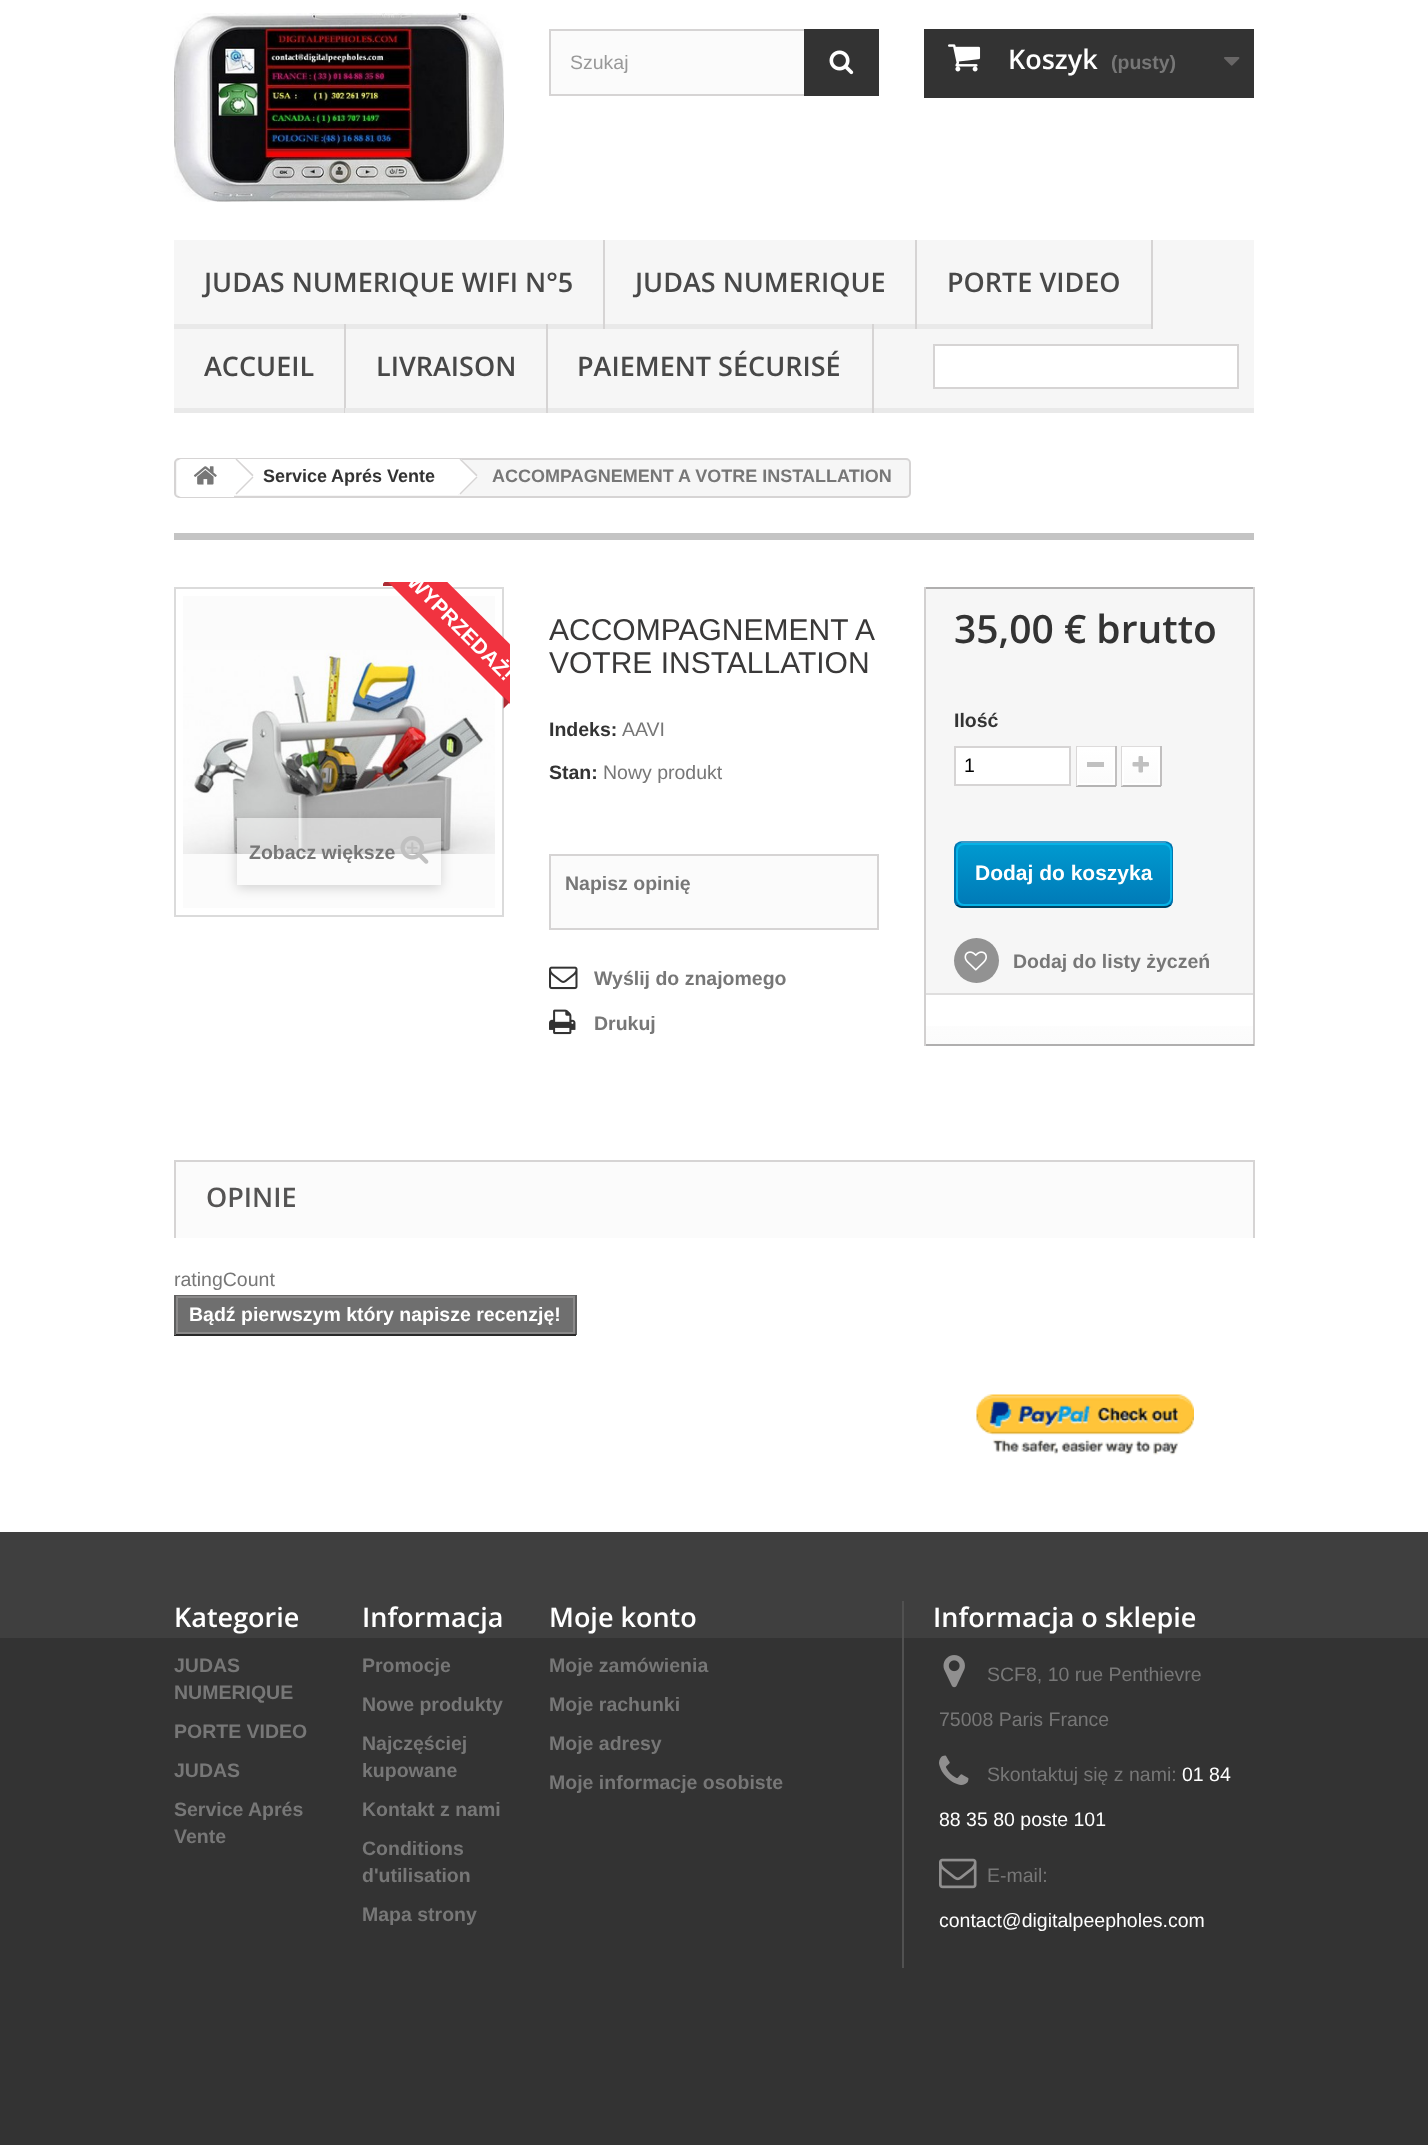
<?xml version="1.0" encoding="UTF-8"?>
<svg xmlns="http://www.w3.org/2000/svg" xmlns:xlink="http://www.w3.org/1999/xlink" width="1428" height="2145">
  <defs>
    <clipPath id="clip1"><rect x="383" y="582" width="127" height="128" /></clipPath>
    <clipPath id="clip2"><path d="M 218 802 h 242 v 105 h -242 z m 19 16 h 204 v 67 h -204 z" clip-rule="evenodd" /></clipPath>
    <linearGradient id="g1" gradientUnits="userSpaceOnUse" x1="1096" y1="749" x2="1096" y2="783"><stop offset="0" stop-color="#ffffff" /><stop offset="1" stop-color="#fbfbfb" /></linearGradient>
    <linearGradient id="g2" gradientUnits="userSpaceOnUse" x1="1141" y1="749" x2="1141" y2="783"><stop offset="0" stop-color="#ffffff" /><stop offset="1" stop-color="#fbfbfb" /></linearGradient>
    <clipPath id="clip3"><rect x="954" y="842" width="219" height="66" rx="8" /></clipPath>
    <linearGradient id="g3" gradientUnits="userSpaceOnUse" x1="1064" y1="843" x2="1064" y2="906"><stop offset="0" stop-color="#009ad0" /><stop offset="1" stop-color="#007ab7" /></linearGradient>
    <linearGradient id="g4" gradientUnits="userSpaceOnUse" x1="1064" y1="906" x2="1064" y2="969"><stop offset="0" stop-color="#009ad0" /><stop offset="1" stop-color="#007ab7" /></linearGradient>
    <linearGradient id="g5" gradientUnits="userSpaceOnUse" x1="1089" y1="995" x2="1089" y2="1044"><stop offset="0" stop-color="#ffffff" /><stop offset="1" stop-color="#fbfbfb" /></linearGradient>
  </defs>
  <rect width="100%" height="100%" fill="#ffffff" />
  <image x="174" y="13" width="330" height="189" xlink:href="image1.png" />
  <rect x="551" y="31" width="253" height="63" fill="#fbfbfb" />
  <rect x="550" y="30" width="328" height="65" fill="none" stroke="#d6d4d4" stroke-width="2" />
  <rect x="804" y="29" width="75" height="67" fill="#333333" />
  <image x="829" y="50" width="25" height="25" xlink:href="image2.png" />
  <rect x="924" y="29" width="330" height="69" fill="#333333" />
  <image x="948" y="44" width="33" height="28" xlink:href="image3.png" />
  <image x="1224" y="57" width="16" height="9" xlink:href="image4.png" />
  <rect x="174" y="240" width="1080" height="168" fill="#f6f6f6" />
  <rect x="174" y="408" width="1080" height="5" fill="#e9e9e9" />
  <rect x="603" y="240" width="2" height="89" fill="#d6d4d4" />
  <rect x="174" y="324" width="429" height="5" fill="#e9e9e9" />
  <rect x="915" y="240" width="2" height="89" fill="#d6d4d4" />
  <rect x="605" y="324" width="310" height="5" fill="#e9e9e9" />
  <rect x="1151" y="240" width="2" height="89" fill="#d6d4d4" />
  <rect x="917" y="324" width="234" height="5" fill="#e9e9e9" />
  <rect x="344" y="324" width="2" height="89" fill="#d6d4d4" />
  <rect x="546" y="324" width="2" height="89" fill="#d6d4d4" />
  <rect x="345" y="408" width="1" height="5" fill="#e9e9e9" />
  <rect x="872" y="324" width="2" height="89" fill="#d6d4d4" />
  <rect x="934" y="345" width="304" height="43" fill="#ffffff" stroke="#d6d4d4" stroke-width="2" />
  <rect x="175" y="459" width="735" height="38" rx="4" fill="#f6f6f6" stroke="#d6d4d4" stroke-width="2" />
  <path d="M 182 459 h 52 v 38 h -52 c -3 0 -5 -2 -5 -5 v -28 c 0 -3 2 -5 5 -5 z" fill="#ffffff" />
  <image x="193" y="466" width="24" height="19" xlink:href="image5.png" />
  <rect x="234" y="459" width="224" height="36" fill="#ffffff" />
  <path d="M 236.5 458.5 l 17 16.5 l -1 1.5 l -17 -17 z" fill="#d6d4d4" />
  <path d="M 252.5 476.5 l 1 1 l -17 17 l -1 -1 z" fill="#d6d4d4" />
  <path d="M 461.5 459.5 l -0.5 -0.5 h -3 l -15.5 15 c -3 3.5 3.5 8 5 9.5 l 7.5 7.5 c 4.5 4.5 4.5 4.5 9 0 l 10 -10 c 2 -2 4.5 -4 2.5 -7 z" fill="#ffffff" />
  <path d="M 460.5 458.5 l 17 16.5 l -1 1.5 l -17 -17 z" fill="#d6d4d4" />
  <path d="M 476.5 476.5 l 1 1 l -17 17 l -1 -1 z" fill="#d6d4d4" />
  <rect x="174" y="533" width="1080" height="7" fill="#c4c4c4" />
  <rect x="175" y="588" width="328" height="328" fill="none" stroke="#dbdbdb" stroke-width="2" />
  <rect x="183" y="596" width="312" height="312" fill="#fbfbfb" />
  <image x="183" y="650" width="312" height="204" xlink:href="image6.png" />
  <g clip-path="url(#clip1)">
    <path d="M 408 543 l 138 137 l -30 30 l -138 -138 z" fill="#f13340" />
    <path d="M 392.5 586 h -12 l 6 -6 z" fill="#ad2b34" />
  </g>
  <path d="M 503.5 708.5 v -12 l 6 6 z" fill="#ad2b34" />
  <g clip-path="url(#clip2)">
    <rect x="237" y="821" width="204" height="67" fill="#000000" fill-opacity="0.16" filter="blur(6px)" />
  </g>
  <rect x="237" y="818" width="204" height="36" fill="#ffffff" fill-opacity="0.5" />
  <image x="400" y="836" width="29" height="28" xlink:href="image7.png" />
  <rect x="550" y="855" width="328" height="74" fill="#fbfbfb" stroke="#d6d4d4" stroke-width="2" />
  <image x="549" y="966" width="29" height="24" xlink:href="image8.png" />
  <image x="549" y="1009" width="27" height="26" xlink:href="image9.png" />
  <rect x="926" y="589" width="327" height="404" fill="#f6f6f6" />
  <rect x="924" y="587" width="330" height="2" fill="#b0afaf" />
  <rect x="1253" y="587" width="2" height="459" fill="#d2d0d0" />
  <rect x="924" y="1044" width="330" height="2" fill="#b0afaf" />
  <rect x="924" y="587" width="2" height="459" fill="#d2d0d0" />
  <rect x="955" y="747" width="115" height="38" fill="#ffffff" stroke="#d6d4d4" stroke-width="2" />
  <rect x="1076" y="746" width="40" height="1" fill="#dedcdc" />
  <rect x="1115" y="746" width="2" height="40" fill="#c1bfbf" />
  <rect x="1076" y="785" width="40" height="2" fill="#b5b4b4" />
  <rect x="1076" y="746" width="2" height="40" fill="#dad8d8" />
  <rect x="1079" y="749" width="34" height="34" fill="url(#g1)" />
  <rect x="1078" y="748" width="36" height="36" fill="none" stroke="#ffffff" stroke-width="2" />
  <rect x="1087" y="762" width="17" height="5" fill="#c0c0c0" />
  <rect x="1121" y="746" width="40" height="1" fill="#dedcdc" />
  <rect x="1160" y="746" width="2" height="40" fill="#c1bfbf" />
  <rect x="1121" y="785" width="40" height="2" fill="#b5b4b4" />
  <rect x="1121" y="746" width="2" height="40" fill="#dad8d8" />
  <rect x="1124" y="749" width="34" height="34" fill="url(#g2)" />
  <rect x="1123" y="748" width="36" height="36" fill="none" stroke="#ffffff" stroke-width="2" />
  <image x="1132" y="756" width="17" height="17" xlink:href="image10.png" />
  <g clip-path="url(#clip3)">
    <rect x="954" y="843" width="219" height="63" fill="url(#g3)" />
    <rect x="954" y="906" width="219" height="2" fill="url(#g4)" />
  </g>
  <path d="M 956.5 844 c 1.5 -1 3 -2 5 -2 h 204 c 2 0 3.5 1 5 2" fill="none" stroke="#0079b6" stroke-width="1.5" />
  <path d="M 1170.5 844 c 1 1.5 1.5 3 1.5 5 v 51 c 0 2 -0.5 3.5 -1.5 5" fill="none" stroke="#006fa8" stroke-width="1.5" />
  <path d="M 1170.5 905 c -1.5 1 -3 2 -5 2 h -204 c -2 0 -3.5 -1 -5 -2" fill="none" stroke="#012740" stroke-width="1.5" />
  <path d="M 956.5 905 c -1 -1.5 -1.5 -3 -1.5 -5 v -51 c 0 -2 0.5 -3.5 1.5 -5" fill="none" stroke="#006fa8" stroke-width="1.5" />
  <rect x="957" y="844" width="214" height="61" rx="7" fill="none" stroke="#06b2e6" stroke-width="2" />
  <circle cx="976.5" cy="960.5" r="22.5" fill="#929292" />
  <image x="964" y="951" width="23" height="20" xlink:href="image11.png" />
  <rect x="926" y="1026" width="327" height="18" fill="url(#g5)" />
  <rect x="926" y="993" width="327" height="2" fill="#dfdede" />
  <rect x="176" y="1162" width="1077" height="76" fill="#fbfbfb" />
  <rect x="174" y="1160" width="1080" height="2" fill="#d6d4d4" />
  <rect x="1253" y="1160" width="2" height="78" fill="#d6d4d4" />
  <rect x="174" y="1160" width="2" height="78" fill="#d6d4d4" />
  <rect x="174" y="1295" width="402" height="1" fill="#666666" />
  <rect x="575" y="1295" width="2" height="40" fill="#5f5f5f" />
  <rect x="174" y="1334" width="402" height="2" fill="#292929" />
  <rect x="174" y="1295" width="2" height="40" fill="#5f5f5f" />
  <rect x="177" y="1297" width="397" height="36" fill="#6f6f6f" stroke="#8b8a8a" stroke-width="2" />
  <image x="976" y="1394" width="218" height="61" xlink:href="image12.png" />
  <rect y="1638" width="1428" height="507" fill="#333333" />
  <rect y="1532" width="1428" height="106" fill="#3f3f3f" />
  <rect x="902" y="1601" width="2" height="367" fill="#515151" />
  <image x="943" y="1655" width="22" height="33" xlink:href="image13.png" />
  <image x="939" y="1755" width="30" height="30" xlink:href="image14.png" />
  <image x="939" y="1858" width="38" height="31" xlink:href="image15.png" />
  <text x="570" y="69" style="font-family: Liberation Sans; font-size: 19.5px; fill: #999999">Szukaj</text>
  <text x="1008" y="69" style="font-family: Open Sans; font-size: 27px; font-weight: 600; fill: #ffffff">Koszyk</text>
  <text x="1111" y="69" style="font-family: Liberation Sans; font-size: 19.5px; font-weight: bold; fill: #777777">(pusty)</text>
  <text x="204" y="292" style="font-family: Open Sans; font-size: 27px; font-weight: 600; fill: #484848">JUDAS NUMERIQUE WIFI N°5</text>
  <text x="635" y="292" style="font-family: Open Sans; font-size: 27px; font-weight: 600; fill: #484848">JUDAS NUMERIQUE</text>
  <text x="947" y="292" style="font-family: Open Sans; font-size: 27px; font-weight: 600; fill: #484848">PORTE VIDEO</text>
  <text x="204" y="376" style="font-family: Open Sans; font-size: 27px; font-weight: 600; fill: #484848">ACCUEIL</text>
  <text x="376" y="376" style="font-family: Open Sans; font-size: 27px; font-weight: 600; fill: #484848">LIVRAISON</text>
  <text x="577" y="376" style="font-family: Open Sans; font-size: 27px; font-weight: 600; fill: #484848">PAIEMENT SÉCURISÉ</text>
  <text x="263" y="482" style="font-family: Liberation Sans; font-size: 18px; font-weight: bold; fill: #333333">Service</text>
  <text x="331" y="482" style="font-family: Liberation Sans; font-size: 18px; font-weight: bold; fill: #333333">Aprés Vente</text>
  <text x="492" y="482" style="font-family: Liberation Sans; font-size: 18px; font-weight: bold; fill: #777777">ACCOMPAGNEMENT</text>
  <text x="678" y="482" style="font-family: Liberation Sans; font-size: 18px; font-weight: bold; fill: #777777">A VOTRE INSTALLATION</text>
  <g clip-path="url(#clip1)">
    <text x="406" y="583" transform="rotate(45 406 583)" style="font-family: Liberation Sans; font-size: 21px; font-weight: bold; fill: #ffffff">WYPRZEDAŻ!</text>
  </g>
  <text x="249" y="859" style="font-family: Liberation Sans; font-size: 19.5px; font-weight: bold; fill: #777777">Zobacz większe</text>
  <text x="549" y="640" style="font-family: Liberation Sans; font-size: 30px; fill: #3a3939">ACCOMPAGNEMENT</text>
  <text x="855" y="640" style="font-family: Liberation Sans; font-size: 30px; fill: #3a3939">A</text>
  <text x="549" y="673" style="font-family: Liberation Sans; font-size: 30px; fill: #3a3939">VOTRE INSTALLATION</text>
  <text x="549" y="736" style="font-family: Liberation Sans; font-size: 19.5px; font-weight: bold; fill: #333333">Indeks:</text>
  <text x="622" y="736" style="font-family: Liberation Sans; font-size: 19.5px; fill: #777777">AAVI</text>
  <text x="549" y="779" style="font-family: Liberation Sans; font-size: 19.5px; font-weight: bold; fill: #333333">Stan:</text>
  <text x="603" y="779" style="font-family: Liberation Sans; font-size: 19.5px; fill: #777777">Nowy produkt</text>
  <text x="565" y="890" style="font-family: Liberation Sans; font-size: 19.5px; font-weight: bold; fill: #777777">Napisz opinię</text>
  <text x="594" y="985" style="font-family: Liberation Sans; font-size: 19.5px; font-weight: bold; fill: #777777">Wyślij do znajomego</text>
  <text x="594" y="1030" style="font-family: Liberation Sans; font-size: 19.5px; font-weight: bold; fill: #777777">Drukuj</text>
  <text x="954" y="643" style="font-family: Open Sans; font-size: 39px; font-weight: 600; fill: #333333">35,00 € brutto</text>
  <text x="954" y="727" style="font-family: Liberation Sans; font-size: 19.5px; font-weight: bold; fill: #333333">Ilość</text>
  <text x="964" y="772" style="font-family: Liberation Sans; font-size: 19.5px; fill: #000000">1</text>
  <text x="975" y="880" style="font-family: Liberation Sans; font-size: 21px; font-weight: bold; fill: #ffffff">Dodaj do koszyka</text>
  <text x="1013" y="968" style="font-family: Liberation Sans; font-size: 19.5px; font-weight: bold; fill: #777777">Dodaj do listy życzeń</text>
  <text x="206" y="1207" style="font-family: Open Sans; font-size: 27px; font-weight: 600; fill: #555454">OPINIE</text>
  <text x="174" y="1286" style="font-family: Liberation Sans; font-size: 19.5px; fill: #777777">ratingCount</text>
  <text x="189" y="1321" style="font-family: Liberation Sans; font-size: 19.5px; font-weight: bold; fill: #ffffff">Bądź pierwszym który napisze recenzję!</text>
  <text x="174" y="1627" style="font-family: Open Sans; font-size: 27px; font-weight: 600; fill: #ffffff">Kategorie</text>
  <text x="174" y="1672" style="font-family: Liberation Sans; font-size: 19.5px; font-weight: bold; fill: #777777">JUDAS</text>
  <text x="174" y="1699" style="font-family: Liberation Sans; font-size: 19.5px; font-weight: bold; fill: #777777">NUMERIQUE</text>
  <text x="174" y="1738" style="font-family: Liberation Sans; font-size: 19.5px; font-weight: bold; fill: #777777">PORTE VIDEO</text>
  <text x="174" y="1777" style="font-family: Liberation Sans; font-size: 19.5px; font-weight: bold; fill: #777777">JUDAS</text>
  <text x="174" y="1816" style="font-family: Liberation Sans; font-size: 19.5px; font-weight: bold; fill: #777777">Service</text>
  <text x="248" y="1816" style="font-family: Liberation Sans; font-size: 19.5px; font-weight: bold; fill: #777777">Aprés</text>
  <text x="174" y="1843" style="font-family: Liberation Sans; font-size: 19.5px; font-weight: bold; fill: #777777">Vente</text>
  <text x="362" y="1627" style="font-family: Open Sans; font-size: 27px; font-weight: 600; fill: #ffffff">Informacja</text>
  <text x="362" y="1672" style="font-family: Liberation Sans; font-size: 19.5px; font-weight: bold; fill: #777777">Promocje</text>
  <text x="362" y="1711" style="font-family: Liberation Sans; font-size: 19.5px; font-weight: bold; fill: #777777">Nowe produkty</text>
  <text x="362" y="1750" style="font-family: Liberation Sans; font-size: 19.5px; font-weight: bold; fill: #777777">Najczęściej</text>
  <text x="362" y="1777" style="font-family: Liberation Sans; font-size: 19.5px; font-weight: bold; fill: #777777">kupowane</text>
  <text x="362" y="1816" style="font-family: Liberation Sans; font-size: 19.5px; font-weight: bold; fill: #777777">Kontakt z nami</text>
  <text x="362" y="1855" style="font-family: Liberation Sans; font-size: 19.5px; font-weight: bold; fill: #777777">Conditions</text>
  <text x="362" y="1882" style="font-family: Liberation Sans; font-size: 19.5px; font-weight: bold; fill: #777777">d'utilisation</text>
  <text x="362" y="1921" style="font-family: Liberation Sans; font-size: 19.5px; font-weight: bold; fill: #777777">Mapa strony</text>
  <text x="549" y="1627" style="font-family: Open Sans; font-size: 27px; font-weight: 600; fill: #ffffff">Moje konto</text>
  <text x="549" y="1672" style="font-family: Liberation Sans; font-size: 19.5px; font-weight: bold; fill: #777777">Moje zamówienia</text>
  <text x="549" y="1711" style="font-family: Liberation Sans; font-size: 19.5px; font-weight: bold; fill: #777777">Moje rachunki</text>
  <text x="549" y="1750" style="font-family: Liberation Sans; font-size: 19.5px; font-weight: bold; fill: #777777">Moje adresy</text>
  <text x="549" y="1789" style="font-family: Liberation Sans; font-size: 19.5px; font-weight: bold; fill: #777777">Moje informacje osobiste</text>
  <text x="933" y="1627" style="font-family: Open Sans; font-size: 27px; font-weight: 600; fill: #ffffff">Informacja o sklepie</text>
  <text x="987" y="1681" style="font-family: Liberation Sans; font-size: 19.5px; fill: #777777">SCF8, 10 rue Penthievre</text>
  <text x="939" y="1726" style="font-family: Liberation Sans; font-size: 19.5px; fill: #777777">75008 Paris France</text>
  <text x="987" y="1781" style="font-family: Liberation Sans; font-size: 19.5px; fill: #777777">Skontaktuj się z nami:</text>
  <text x="1182" y="1781" style="font-family: Liberation Sans; font-size: 19.5px; fill: #ffffff">01 84</text>
  <text x="939" y="1826" style="font-family: Liberation Sans; font-size: 19.5px; fill: #ffffff">88 35 80 poste 101</text>
  <text x="987" y="1882" style="font-family: Liberation Sans; font-size: 19.5px; fill: #777777">E-mail:</text>
  <text x="939" y="1927" style="font-family: Liberation Sans; font-size: 19.5px; fill: #ffffff">contact@digitalpeepholes.com</text>
</svg>
